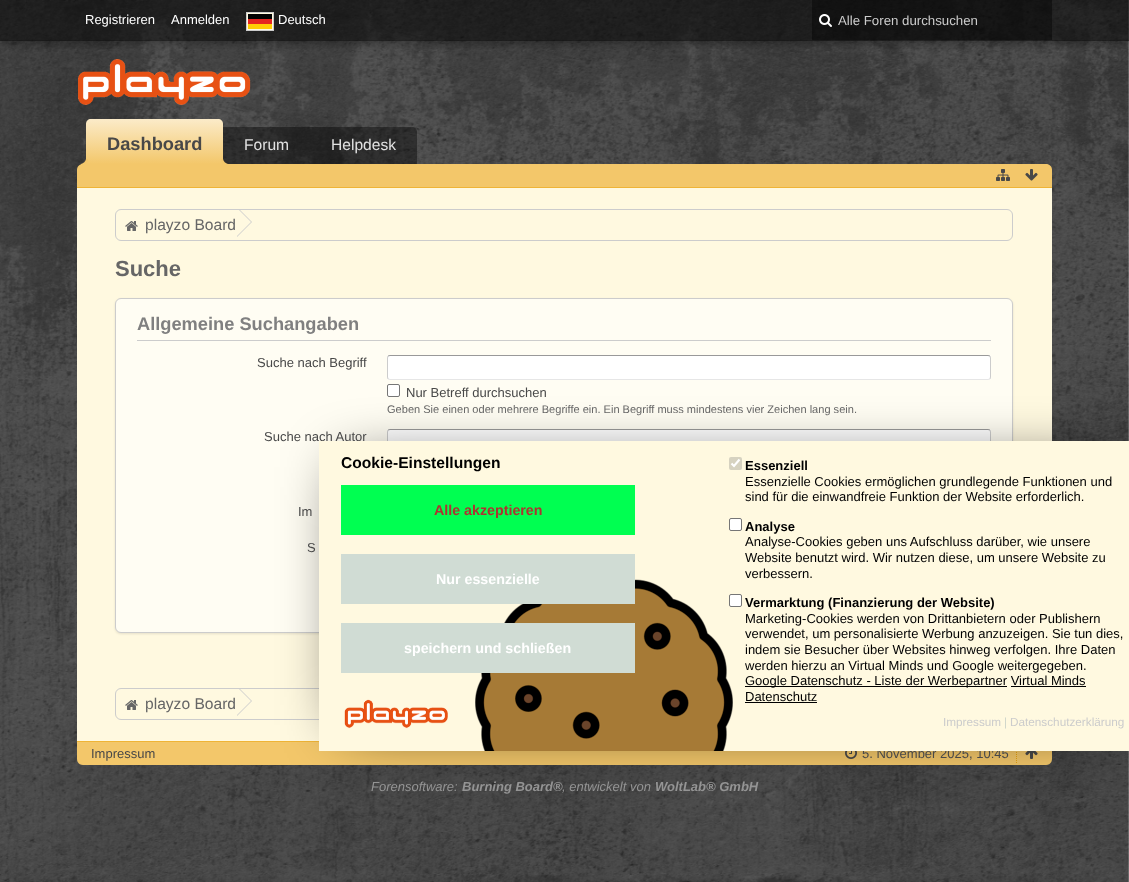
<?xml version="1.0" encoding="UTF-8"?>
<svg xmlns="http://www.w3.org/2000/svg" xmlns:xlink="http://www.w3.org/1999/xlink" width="1129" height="882">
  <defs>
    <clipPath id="clip1"><rect x="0" y="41" width="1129" height="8" /></clipPath>
    <linearGradient id="g1" gradientUnits="userSpaceOnUse" x1="155" y1="119" x2="155" y2="164"><stop offset="0" stop-color="#fbebc9" /><stop offset="1" stop-color="#f3c76a" /></linearGradient>
  </defs>
  <rect width="100%" height="100%" fill="#ffffff" />
  <image x="0" y="0" width="1129" height="882" xlink:href="image1.png" />
  <g clip-path="url(#clip1)">
    <rect y="3" width="1129" height="41" fill="#000000" fill-opacity="0.3" filter="blur(3.5px)" />
  </g>
  <rect width="1129" height="41" fill="#000000" fill-opacity="0.5" />
  <rect y="40" width="1129" height="1" fill="#000000" fill-opacity="0.1" />
  <rect x="246.5" y="12.5" width="27" height="18" fill="#fff9e0" stroke="#cccccc" />
  <rect x="248" y="14" width="24" height="5" fill="#010202" />
  <rect x="248" y="19" width="24" height="5" fill="#e52420" />
  <rect x="248" y="24" width="24" height="5" fill="#ffcc04" />
  <rect x="812" width="240" height="40" fill="#000000" fill-opacity="0.4" />
  <image x="819" y="14" width="13" height="13" xlink:href="image2.png" />
  <image x="78" y="59" width="173" height="46" xlink:href="image3.png" />
  <path d="M 91 127 h 321 c 3 0 5 2 5 5 v 32 h -331 v -32 c 0 -3 2 -5 5 -5 z" fill="#000000" fill-opacity="0.4" />
  <path d="M 91 119 h 127 c 3 0 5 2 5 5 v 40 h -137 v -40 c 0 -3 2 -5 5 -5 z" fill="url(#g1)" />
  <path d="M 83 164 h 963 c 3.5 0 6 2.5 6 6 v 18 h -975 v -18 c 0 -3.5 2.5 -6 6 -6 z" fill="#f3c76a" />
  <path d="M 81 164 v 2 c 4.5 0 7 -2.5 7 -7 h -2 c -0.5 2.5 -2.5 4.5 -5 5 z" fill="#f3c76a" />
  <path d="M 221 159 c 0 4.5 2.5 7 7 7 v -2 c -2.5 -0.5 -4.5 -2.5 -5 -5 z" fill="#f3c76a" />
  <rect x="77" y="187" width="975" height="1" fill="#efb436" />
  <image x="996" y="169" width="14" height="12" xlink:href="image4.png" />
  <image x="1025" y="169" width="13" height="12" xlink:href="image5.png" />
  <rect x="77" y="188" width="975" height="553" fill="#fff9e0" />
  <rect x="115.5" y="209.5" width="897" height="31" rx="5.5" fill="none" stroke="#cccccc" />
  <image x="125" y="221" width="13" height="10" xlink:href="image6.png" />
  <path d="M 237 237 l 15 -15 l -12 -12 h -3 z" fill="#cccccc" />
  <path d="M 236 237 l 15 -15 l -12 -12 h -3 z" fill="#fff9e0" />
  <rect x="115" y="299" width="898" height="335" rx="6" fill="#000000" fill-opacity="0.1" filter="blur(1px)" />
  <rect x="115.5" y="298.5" width="897" height="334" rx="5.5" fill="#fffdf3" stroke="#cccccc" />
  <rect x="137" y="340" width="854" height="1" fill="#cccccc" />
  <rect x="387" y="355" width="604" height="25" rx="3" fill="#ffffff" />
  <path d="M 388 356 l 2 -0.5 h 598 l 2 0.5" fill="none" stroke="#999999" />
  <path d="M 990 356 c 0 0.5 0.5 1.5 0.5 2 v 19 c 0 0.5 -0.5 1.5 -0.5 2" fill="none" stroke="#cccccc" />
  <path d="M 990 379 l -2 0.5 h -598 l -2 -0.5" fill="none" stroke="#e6e6e6" />
  <path d="M 388 379 c 0 -0.5 -0.5 -1.5 -0.5 -2 v -19 c 0 -0.5 0.5 -1.5 0.5 -2" fill="none" stroke="#cccccc" />
  <rect x="387.5" y="384.5" width="12" height="12" rx="1.5" fill="#ffffff" stroke="#767676" />
  <rect x="387" y="429" width="604" height="25" rx="3" fill="#ffffff" />
  <path d="M 388 430 l 2 -0.5 h 598 l 2 0.5" fill="none" stroke="#999999" />
  <path d="M 990 430 c 0 0.5 0.5 1.5 0.5 2 v 19 c 0 0.5 -0.5 1.5 -0.5 2" fill="none" stroke="#cccccc" />
  <path d="M 388 453 c 0 -0.5 -0.5 -1.5 -0.5 -2 v -19 c 0 -0.5 0.5 -1.5 0.5 -2" fill="none" stroke="#cccccc" />
  <rect x="115.5" y="688.5" width="897" height="31" rx="5.5" fill="none" stroke="#cccccc" />
  <image x="125" y="700" width="13" height="10" xlink:href="image6.png" />
  <path d="M 237 716 l 15 -15 l -12 -12 h -3 z" fill="#cccccc" />
  <path d="M 236 716 l 15 -15 l -12 -12 h -3 z" fill="#fff9e0" />
  <path d="M 77 741 h 975 v 18 c 0 3.5 -2.5 6 -6 6 h -963 c -3.5 0 -6 -2.5 -6 -6 z" fill="#f3c76a" />
  <rect x="77" y="741" width="242" height="1" fill="#efb436" />
  <path d="M 1016.5 742 v 22" fill="none" stroke="#e5a212" stroke-dasharray="1 1" />
  <image x="845" y="751" width="12" height="8" xlink:href="image9.png" />
  <image x="1025" y="751" width="13" height="8" xlink:href="image10.png" />
  <rect x="345" y="467" width="758" height="258" fill="#000000" fill-opacity="0.8" filter="blur(30px)" />
  <text x="85" y="24" style="font-family: Liberation Sans; font-size: 13px; fill: #ffffff">Registrieren</text>
  <text x="171" y="24" style="font-family: Liberation Sans; font-size: 13px; fill: #ffffff">Anmelden</text>
  <text x="278" y="24" style="font-family: Liberation Sans; font-size: 13px; fill: #ffffff">Deutsch</text>
  <text x="838" y="25" style="font-family: Liberation Sans; font-size: 13.25px; fill: #cccccc">Alle Foren durchsuchen</text>
  <text x="107" y="150" style="font-family: Liberation Sans; font-size: 18.25px; font-weight: bold; fill: #484848">Dashboard</text>
  <text x="244" y="150" style="font-family: Liberation Sans; font-size: 15.6px; fill: #e2e2e2">Forum</text>
  <text x="331" y="150" style="font-family: Liberation Sans; font-size: 15.6px; fill: #e2e2e2">Helpdesk</text>
  <text x="145" y="230" style="font-family: Liberation Sans; font-size: 15.6px; fill: #666666">playzo Board</text>
  <text x="115" y="276" style="font-family: Liberation Sans; font-size: 22px; font-weight: bold; fill: #666666">Suche</text>
  <text x="137" y="330" style="font-family: Liberation Sans; font-size: 18.25px; font-weight: bold; fill: #808080">Allgemeine Suchangaben</text>
  <text x="257" y="367" style="font-family: Liberation Sans; font-size: 13px; fill: #484848">Suche nach Begriff</text>
  <text x="406" y="397" style="font-family: Liberation Sans; font-size: 13px; fill: #484848">Nur Betreff durchsuchen</text>
  <text x="387" y="413" style="font-family: Liberation Sans; font-size: 11.05px; fill: #666666">Geben Sie einen oder mehrere Begriffe ein. Ein Begriff muss mindestens vier Zeichen lang sein.</text>
  <text x="264" y="441" style="font-family: Liberation Sans; font-size: 13px; fill: #484848">Suche nach Autor</text>
  <text x="298" y="516" style="font-family: Liberation Sans; font-size: 13px; fill: #484848">Im</text>
  <text x="307" y="552" style="font-family: Liberation Sans; font-size: 13px; fill: #484848">S</text>
  <text x="145" y="709" style="font-family: Liberation Sans; font-size: 15.6px; fill: #666666">playzo Board</text>
  <text x="91" y="758" style="font-family: Liberation Sans; font-size: 13px; fill: #484848">Impressum</text>
  <text x="862" y="758" style="font-family: Liberation Sans; font-size: 13px; fill: #484848">5. November 2025, 10:45</text>
  <rect x="319" y="441" width="810" height="310" fill="#fff9e0" />
  <text x="1010" y="726" style="font-family: Liberation Sans; font-size: 11.75px; fill: #cccccc">Datenschutzerklärung</text>
  <text x="1004" y="726" style="font-family: Liberation Sans; font-size: 11.75px; fill: #cfd6ca">|</text>
  <text x="943" y="726" style="font-family: Liberation Sans; font-size: 11.75px; fill: #cccccc">Impressum</text>
  <text x="745" y="701" style="font-family: Liberation Sans; font-size: 13px; fill: #000000">Datenschutz</text>
  <rect x="745" y="702" width="72" height="1" fill="#000000" />
  <rect x="1011" y="686" width="75" height="1" fill="#000000" />
  <rect x="745" y="686" width="262" height="1" fill="#000000" />
  <text x="745" y="685" style="font-family: Liberation Sans; font-size: 13px; fill: #000000">Google Datenschutz - Liste der Werbepartner Virtual Minds</text>
  <text x="745" y="670" style="font-family: Liberation Sans; font-size: 13px; fill: #000000">werden hierzu an Virtual Minds und Google weitergegeben.</text>
  <text x="745" y="654" style="font-family: Liberation Sans; font-size: 13px; fill: #000000">indem sie Besucher über Websites hinweg verfolgen. Ihre Daten</text>
  <text x="745" y="638" style="font-family: Liberation Sans; font-size: 13px; fill: #000000">verwendet, um personalisierte Werbung anzuzeigen. Sie tun dies,</text>
  <text x="745" y="623" style="font-family: Liberation Sans; font-size: 13px; fill: #000000">Marketing-Cookies werden von Drittanbietern oder Publishern</text>
  <text x="745" y="607" style="font-family: Liberation Sans; font-size: 13px; font-weight: bold; fill: #000000">Vermarktung (Finanzierung der Website)</text>
  <image x="475" y="579" width="258" height="172" xlink:href="image7.png" />
  <rect x="729.5" y="594.5" width="12" height="12" rx="1.5" fill="#ffffff" stroke="#767676" />
  <text x="745" y="578" style="font-family: Liberation Sans; font-size: 13px; fill: #000000">verbessern.</text>
  <text x="745" y="562" style="font-family: Liberation Sans; font-size: 13px; fill: #000000">Website benutzt wird. Wir nutzen diese, um unsere Website zu</text>
  <text x="745" y="546" style="font-family: Liberation Sans; font-size: 13px; fill: #000000">Analyse-Cookies geben uns Aufschluss darüber, wie unsere</text>
  <text x="745" y="531" style="font-family: Liberation Sans; font-size: 13px; font-weight: bold; fill: #000000">Analyse</text>
  <rect x="729.5" y="518.5" width="12" height="12" rx="1.5" fill="#ffffff" stroke="#767676" />
  <text x="745" y="501" style="font-family: Liberation Sans; font-size: 13px; fill: #000000">sind für die einwandfreie Funktion der Website erforderlich.</text>
  <text x="745" y="486" style="font-family: Liberation Sans; font-size: 13px; fill: #000000">Essenzielle Cookies ermöglichen grundlegende Funktionen und</text>
  <text x="745" y="470" style="font-family: Liberation Sans; font-size: 13px; font-weight: bold; fill: #000000">Essenziell</text>
  <rect x="729" y="457" width="13" height="13" rx="2" fill="#d6d2c0" />
  <path d="M 731.5 463.5 l 2.5 2.5 l 5.5 -6.5" fill="none" stroke="#ffffff" stroke-width="2.1" />
  <image x="344" y="699" width="104" height="30" xlink:href="image8.png" />
  <rect x="341" y="623" width="294" height="50" fill="#d0dcd4" />
  <text x="404" y="653" style="font-family: Liberation Sans; font-size: 14.25px; font-weight: bold; fill: #ffffff">speichern und schließen</text>
  <rect x="341" y="554" width="294" height="50" fill="#d0dcd4" />
  <text x="436" y="584" style="font-family: Liberation Sans; font-size: 14.25px; font-weight: bold; fill: #ffffff">Nur essenzielle</text>
  <rect x="341" y="485" width="294" height="50" fill="#00ff51" />
  <text x="434" y="515" style="font-family: Liberation Sans; font-size: 14.25px; font-weight: bold; fill: #ad3331">Alle akzeptieren</text>
  <text x="341" y="468" style="font-family: Liberation Sans; font-size: 15.6px; font-weight: bold; fill: #000000">Cookie-Einstellungen</text>
  <text x="371" y="791" style="font-family: Liberation Sans; font-size: 13px; font-style: italic; fill: #949494">Forensoftware:</text>
  <text x="462" y="791" style="font-family: Liberation Sans; font-size: 13px; font-weight: bold; font-style: italic; fill: #949494">Burning Board®</text>
  <text x="562" y="791" style="font-family: Liberation Sans; font-size: 13px; font-style: italic; fill: #949494">, entwickelt von</text>
  <text x="655" y="791" style="font-family: Liberation Sans; font-size: 13px; font-weight: bold; font-style: italic; fill: #949494">WoltLab® GmbH</text>
</svg>
